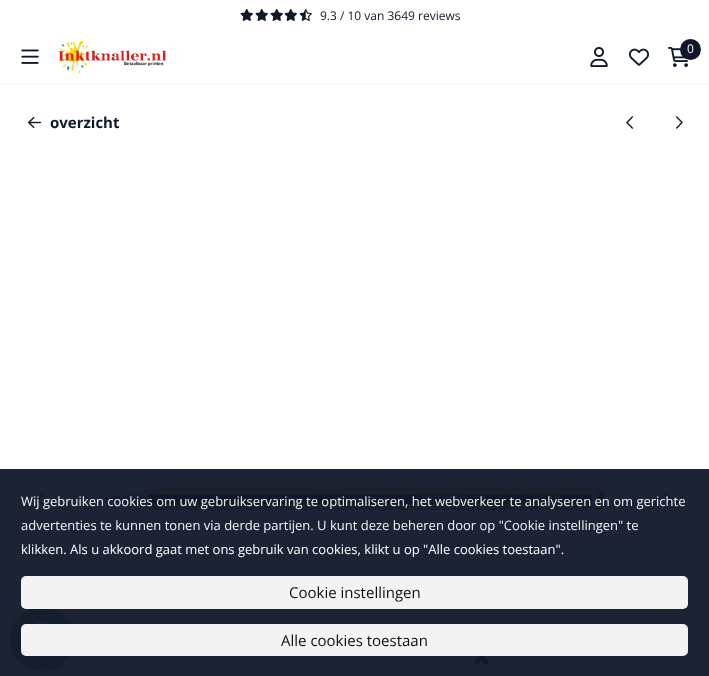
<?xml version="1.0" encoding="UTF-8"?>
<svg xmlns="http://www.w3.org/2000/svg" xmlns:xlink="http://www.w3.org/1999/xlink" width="709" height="676">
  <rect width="100%" height="100%" fill="#ffffff" />
  <rect y="469" width="709" height="207" fill="#1b2335" />
  <image x="240" y="9" width="13" height="12" xlink:href="image1.png" />
  <image x="255" y="9" width="13" height="12" xlink:href="image1.png" />
  <image x="270" y="9" width="13" height="12" xlink:href="image1.png" />
  <image x="284" y="9" width="13" height="12" xlink:href="image1.png" />
  <image x="299" y="9" width="13" height="12" xlink:href="image2.png" />
  <rect y="33" width="709" height="51" fill="#000000" fill-opacity="0.05" filter="blur(1px)" />
  <rect y="32" width="709" height="51" fill="#ffffff" />
  <image x="21" y="49" width="18" height="15" xlink:href="image3.png" />
  <image x="58" y="40" width="109" height="34" xlink:href="image4.png" />
  <image x="590" y="47" width="18" height="20" xlink:href="image5.png" />
  <image x="629" y="48" width="20" height="18" xlink:href="image6.png" />
  <image x="668" y="47" width="20" height="20" xlink:href="image7.png" />
  <circle cx="690.5" cy="49.5" r="10.5" fill="#0f172a" />
  <image x="28" y="116" width="13" height="13" xlink:href="image8.png" />
  <image x="626" y="116" width="7" height="13" xlink:href="image9.png" />
  <image x="676" y="116" width="7" height="13" xlink:href="image10.png" />
  <image x="37" y="493" width="8" height="13" xlink:href="image11.png" />
  <image x="105" y="488" width="500" height="22" xlink:href="image12.png" />
  <image x="665" y="493" width="7" height="13" xlink:href="image13.png" />
  <image x="9" y="606" width="66" height="66" xlink:href="image14.png" />
  <rect x="21" y="576" width="667" height="33" rx="5" fill="#ffffff" fill-opacity="0.95" />
  <image x="474" y="654" width="15" height="11" xlink:href="image15.png" />
  <rect x="21" y="624" width="667" height="32" rx="5" fill="#ffffff" fill-opacity="0.95" />
  <text x="320" y="20" style="font-family: Open Sans; font-size: 12px; fill: #0f172a">9.3 / 10 van 3649 reviews</text>
  <text x="687" y="53" style="font-family: Open Sans; font-size: 12px; fill: #ffffff">0</text>
  <text x="50" y="128" style="font-family: Open Sans; font-size: 15px; font-weight: bold; fill: #0f172a">overzicht</text>
  <text x="21" y="506" style="font-family: Open Sans; font-size: 13px; fill: #f3f4f4">Wij gebruiken cookies om uw gebruikservaring te optimaliseren, het webverkeer te analyseren en om gerichte</text>
  <text x="21" y="530" style="font-family: Open Sans; font-size: 13px; fill: #f3f4f4">advertenties te kunnen tonen via derde partijen. U kunt deze beheren door op "Cookie instellingen" te</text>
  <text x="21" y="554" style="font-family: Open Sans; font-size: 13px; fill: #ffffff">klikken. Als u akkoord gaat met ons gebruik van cookies, klikt u op "Alle cookies toestaan".</text>
  <text x="289" y="598" style="font-family: Open Sans; font-size: 15px; fill: #0d0d0d">Cookie instellingen</text>
  <text x="281" y="646" style="font-family: Open Sans; font-size: 15px; fill: #0d0d0d">Alle cookies toestaan</text>
</svg>
